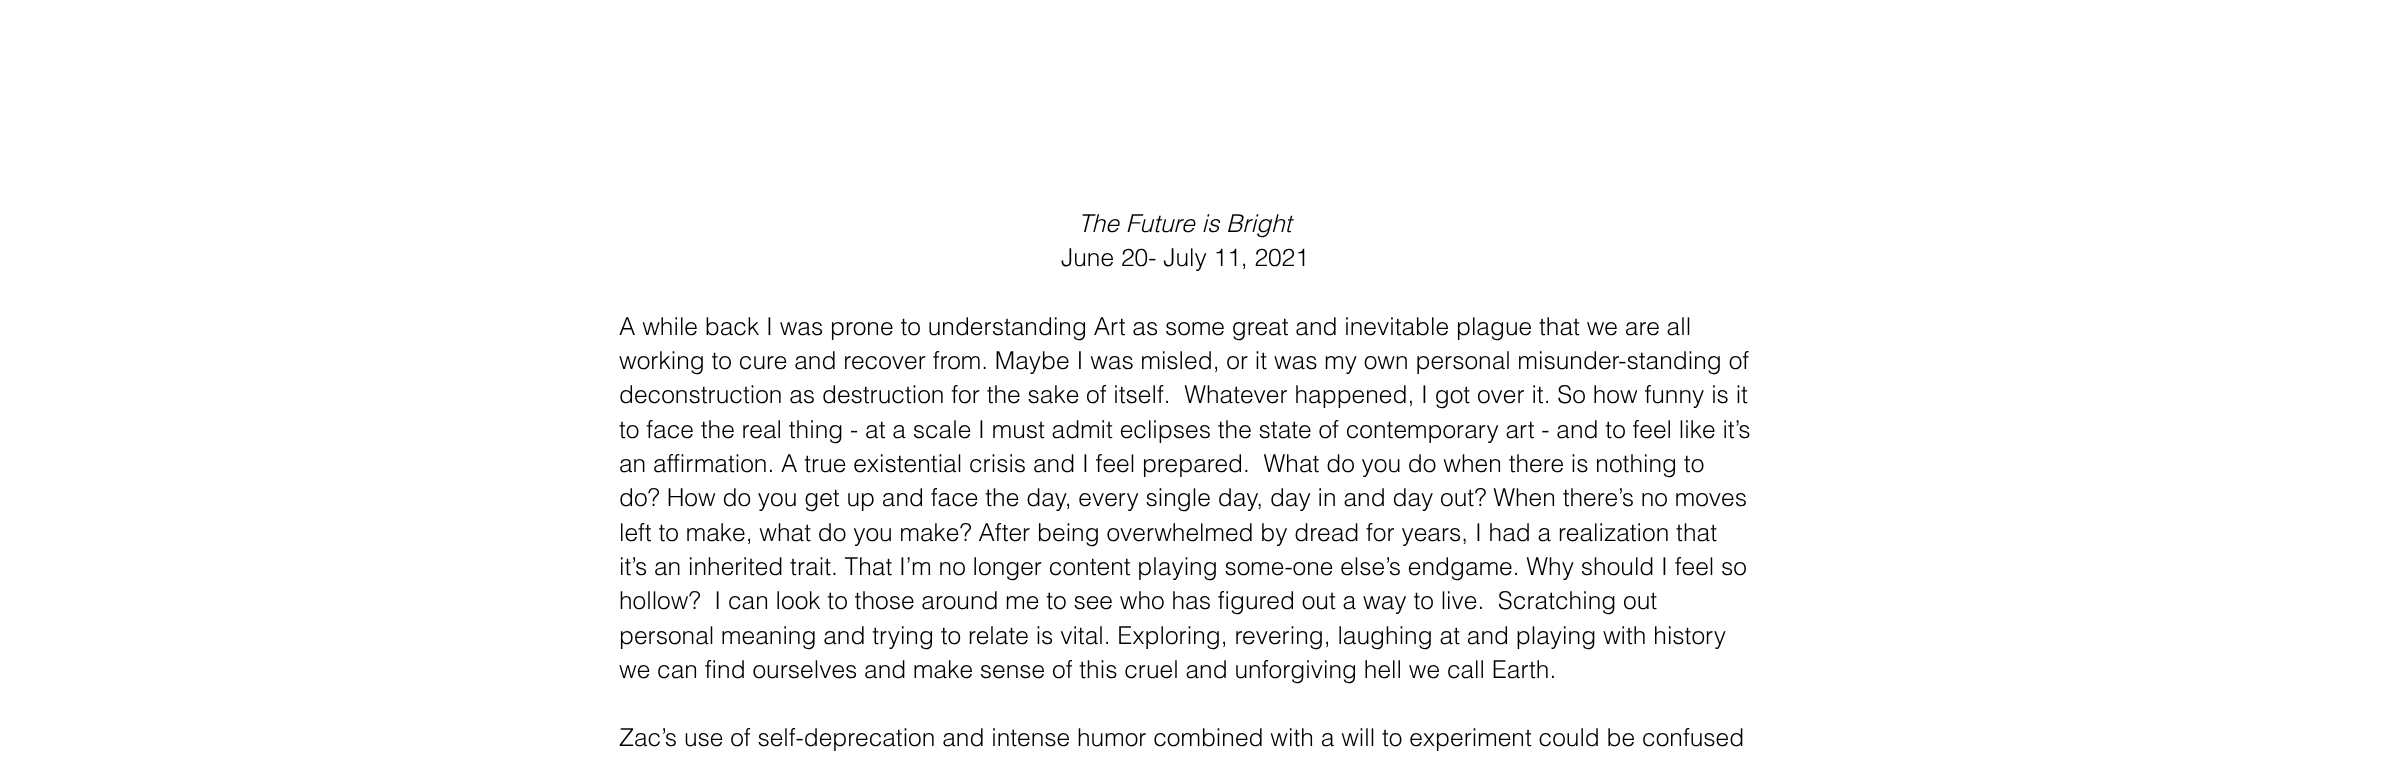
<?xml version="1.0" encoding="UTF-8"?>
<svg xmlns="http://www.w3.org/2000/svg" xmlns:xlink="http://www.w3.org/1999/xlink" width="2385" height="760">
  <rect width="100%" height="100%" fill="#ffffff" />
  <text x="1078" y="232" style="font-family: helvetica; font-size: 24.5px; font-weight: 300; font-style: italic; fill: #000000">The Future is Bright</text>
  <text x="1061" y="266" style="font-family: helvetica; font-size: 24.5px; font-weight: 300; fill: #000000">June 20- July 11, 2021</text>
  <text x="619" y="335" style="font-family: helvetica; font-size: 24.5px; font-weight: 300; fill: #000000">A while back I was prone to understanding Art as some great and inevitable plague that we are all</text>
  <text x="619" y="369" style="font-family: helvetica; font-size: 24.5px; font-weight: 300; fill: #000000">working to cure and recover from. Maybe I was misled, or it was my own personal misunder-standing of</text>
  <text x="619" y="403" style="font-family: helvetica; font-size: 24.5px; font-weight: 300; fill: #000000" xml:space="preserve">deconstruction as destruction for the sake of itself.  Whatever happened, I got over it. So how funny is it</text>
  <text x="619" y="438" style="font-family: helvetica; font-size: 24.5px; font-weight: 300; fill: #000000">to face the real thing - at a scale I must admit eclipses the state of contemporary art - and to feel like it’s</text>
  <text x="619" y="472" style="font-family: helvetica; font-size: 24.5px; font-weight: 300; fill: #000000" xml:space="preserve">an affirmation. A true existential crisis and I feel prepared.  What do you do when there is nothing to</text>
  <text x="619" y="506" style="font-family: helvetica; font-size: 24.5px; font-weight: 300; fill: #000000">do? How do you get up and face the day, every single day, day in and day out? When there’s no moves</text>
  <text x="619" y="541" style="font-family: helvetica; font-size: 24.5px; font-weight: 300; fill: #000000">left to make, what do you make? After being overwhelmed by dread for years, I had a realization that</text>
  <text x="619" y="575" style="font-family: helvetica; font-size: 24.5px; font-weight: 300; fill: #000000">it’s an inherited trait. That I’m no longer content playing some-one else’s endgame. Why should I feel so</text>
  <text x="619" y="609" style="font-family: helvetica; font-size: 24.5px; font-weight: 300; fill: #000000" xml:space="preserve">hollow?  I can look to those around me to see who has figured out a way to live.  Scratching out</text>
  <text x="619" y="644" style="font-family: helvetica; font-size: 24.5px; font-weight: 300; fill: #000000">personal meaning and trying to relate is vital. Exploring, revering, laughing at and playing with history</text>
  <text x="619" y="678" style="font-family: helvetica; font-size: 24.5px; font-weight: 300; fill: #000000">we can find ourselves and make sense of this cruel and unforgiving hell we call Earth.</text>
  <text x="619" y="746" style="font-family: helvetica; font-size: 24.5px; font-weight: 300; fill: #000000">Zac’s use of self-deprecation and intense humor combined with a will to experiment could be confused</text>
</svg>
